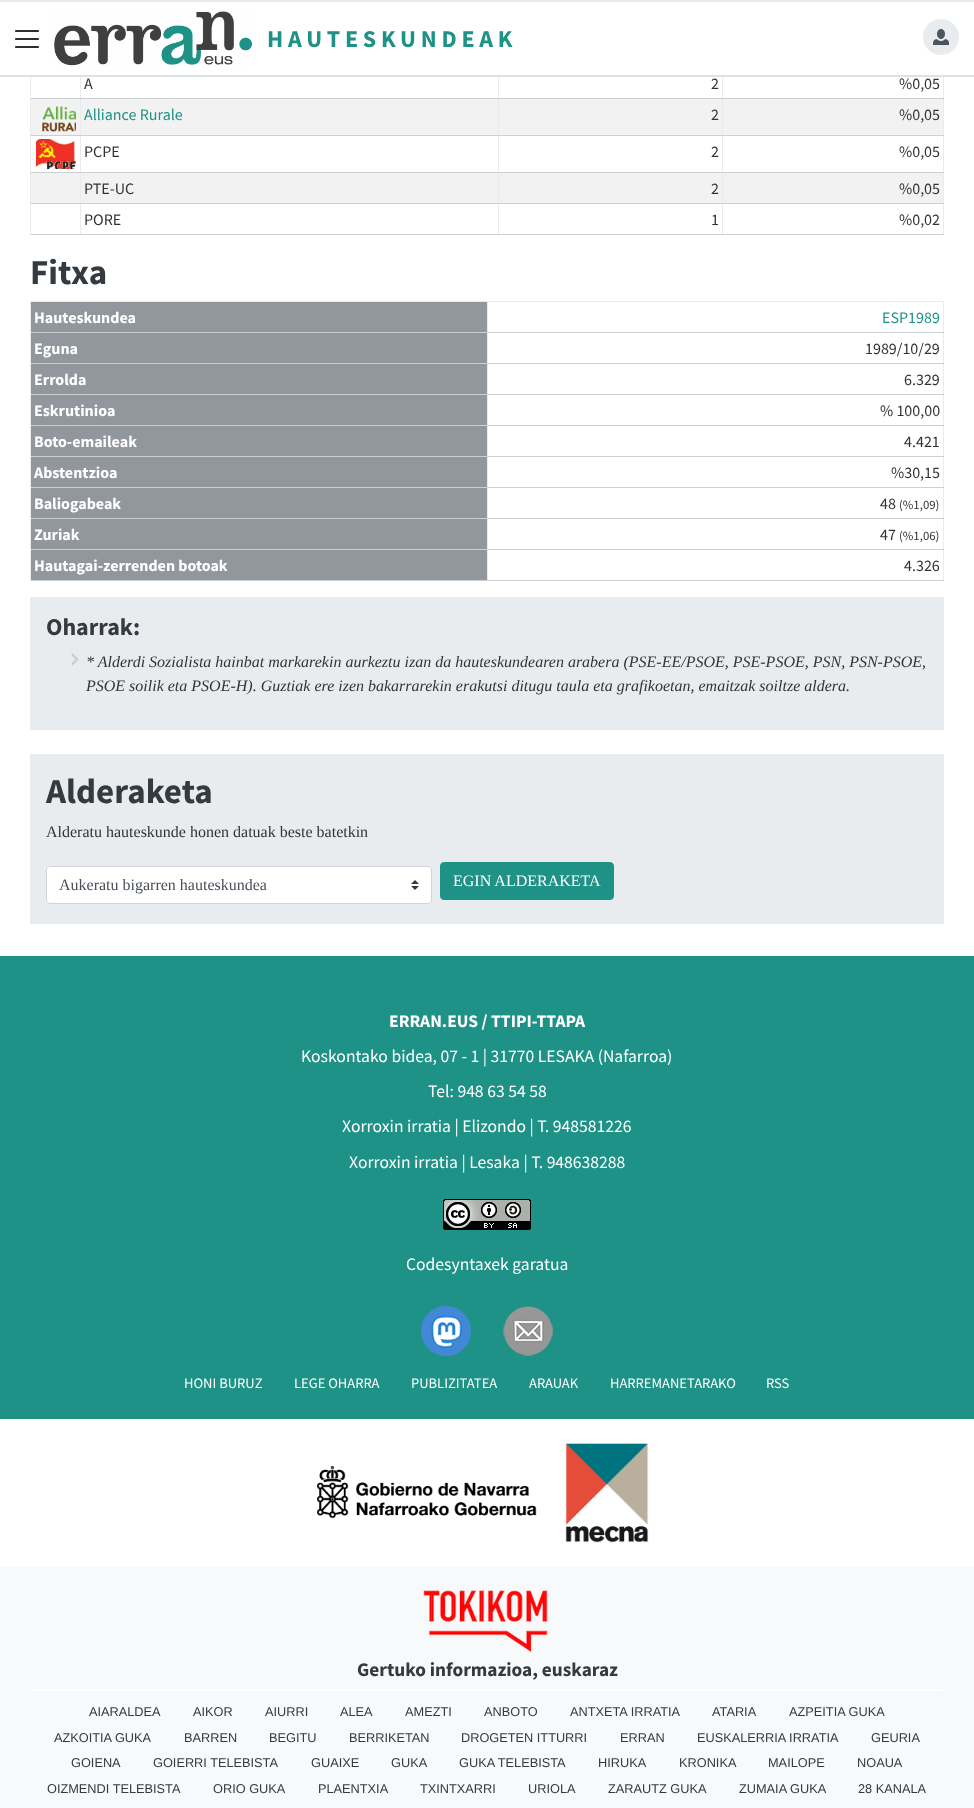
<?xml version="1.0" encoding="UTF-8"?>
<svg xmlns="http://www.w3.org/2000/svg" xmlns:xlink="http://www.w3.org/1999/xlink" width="974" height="1808">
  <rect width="100%" height="100%" fill="#ffffff" />
  <rect width="974" height="2" fill="#e9ecef" />
  <image x="15" y="30" width="24" height="18" xlink:href="image1.png" />
  <image x="54" y="11" width="198" height="55" xlink:href="image2.png" />
  <circle cx="941" cy="37" r="18" fill="#e9ecef" />
  <image x="933" y="29" width="16" height="16" xlink:href="image3.png" />
  <rect y="75" width="974" height="2" fill="#dee2e6" />
  <rect x="943" y="77" width="1" height="158" fill="#e9ecef" />
  <rect x="31" y="99" width="912" height="36" fill="#f2f2f2" />
  <rect x="31" y="173" width="912" height="30" fill="#f2f2f2" />
  <rect x="722" y="234" width="222" height="1" fill="#cdd0d3" />
  <rect x="722" y="203" width="1" height="32" fill="#e9ecef" />
  <rect x="722" y="203" width="222" height="1" fill="#cdd0d3" />
  <rect x="722" y="172" width="1" height="32" fill="#e9ecef" />
  <rect x="722" y="172" width="222" height="1" fill="#cdd0d3" />
  <rect x="722" y="135" width="1" height="38" fill="#e9ecef" />
  <rect x="722" y="135" width="222" height="1" fill="#cdd0d3" />
  <rect x="722" y="98" width="1" height="38" fill="#e9ecef" />
  <rect x="722" y="98" width="222" height="1" fill="#cdd0d3" />
  <rect x="722" y="77" width="1" height="22" fill="#e9ecef" />
  <rect x="498" y="234" width="225" height="1" fill="#cdd0d3" />
  <rect x="498" y="203" width="1" height="32" fill="#e9ecef" />
  <rect x="498" y="203" width="225" height="1" fill="#cdd0d3" />
  <rect x="498" y="172" width="1" height="32" fill="#e9ecef" />
  <rect x="498" y="172" width="225" height="1" fill="#cdd0d3" />
  <rect x="498" y="135" width="1" height="38" fill="#e9ecef" />
  <rect x="498" y="135" width="225" height="1" fill="#cdd0d3" />
  <rect x="498" y="98" width="1" height="38" fill="#e9ecef" />
  <rect x="498" y="98" width="225" height="1" fill="#cdd0d3" />
  <rect x="498" y="77" width="1" height="22" fill="#e9ecef" />
  <rect x="80" y="234" width="419" height="1" fill="#cdd0d3" />
  <rect x="80" y="203" width="1" height="32" fill="#e9ecef" />
  <rect x="80" y="203" width="419" height="1" fill="#cdd0d3" />
  <rect x="80" y="172" width="1" height="32" fill="#e9ecef" />
  <rect x="80" y="172" width="419" height="1" fill="#cdd0d3" />
  <rect x="80" y="135" width="1" height="38" fill="#e9ecef" />
  <rect x="80" y="135" width="419" height="1" fill="#cdd0d3" />
  <rect x="80" y="98" width="1" height="38" fill="#e9ecef" />
  <rect x="80" y="98" width="419" height="1" fill="#cdd0d3" />
  <rect x="80" y="77" width="1" height="22" fill="#e9ecef" />
  <rect x="30" y="234" width="51" height="1" fill="#cdd0d3" />
  <rect x="30" y="203" width="1" height="32" fill="#e9ecef" />
  <rect x="30" y="203" width="51" height="1" fill="#cdd0d3" />
  <rect x="30" y="172" width="1" height="32" fill="#e9ecef" />
  <rect x="30" y="172" width="51" height="1" fill="#cdd0d3" />
  <rect x="30" y="135" width="1" height="38" fill="#e9ecef" />
  <rect x="30" y="135" width="51" height="1" fill="#cdd0d3" />
  <rect x="30" y="98" width="1" height="38" fill="#e9ecef" />
  <rect x="30" y="98" width="51" height="1" fill="#cdd0d3" />
  <rect x="30" y="77" width="1" height="22" fill="#e9ecef" />
  <image x="42" y="106" width="34" height="26" xlink:href="image4.png" />
  <image x="36" y="139" width="40" height="30" xlink:href="image5.png" />
  <rect x="30" y="301" width="914" height="1" fill="#e9ecef" />
  <rect x="943" y="301" width="1" height="280" fill="#e9ecef" />
  <rect x="31" y="302" width="456" height="30" fill="#91979d" />
  <rect x="487" y="580" width="457" height="1" fill="#cdd0d3" />
  <rect x="487" y="549" width="1" height="32" fill="#e9ecef" />
  <rect x="487" y="549" width="457" height="1" fill="#cdd0d3" />
  <rect x="487" y="518" width="1" height="32" fill="#e9ecef" />
  <rect x="487" y="518" width="457" height="1" fill="#cdd0d3" />
  <rect x="487" y="487" width="1" height="32" fill="#e9ecef" />
  <rect x="487" y="487" width="457" height="1" fill="#cdd0d3" />
  <rect x="487" y="456" width="1" height="32" fill="#e9ecef" />
  <rect x="487" y="456" width="457" height="1" fill="#cdd0d3" />
  <rect x="487" y="425" width="1" height="32" fill="#e9ecef" />
  <rect x="487" y="425" width="457" height="1" fill="#cdd0d3" />
  <rect x="487" y="394" width="1" height="32" fill="#e9ecef" />
  <rect x="487" y="394" width="457" height="1" fill="#cdd0d3" />
  <rect x="487" y="363" width="1" height="32" fill="#e9ecef" />
  <rect x="487" y="363" width="457" height="1" fill="#cdd0d3" />
  <rect x="487" y="332" width="1" height="32" fill="#e9ecef" />
  <rect x="487" y="332" width="457" height="1" fill="#cdd0d3" />
  <rect x="487" y="301" width="1" height="32" fill="#e9ecef" />
  <rect x="30" y="580" width="458" height="1" fill="#cdd0d3" />
  <rect x="30" y="549" width="1" height="32" fill="#e9ecef" />
  <rect x="30" y="549" width="458" height="1" fill="#cdd0d3" />
  <rect x="30" y="518" width="1" height="32" fill="#e9ecef" />
  <rect x="30" y="518" width="458" height="1" fill="#cdd0d3" />
  <rect x="30" y="487" width="1" height="32" fill="#e9ecef" />
  <rect x="30" y="487" width="458" height="1" fill="#cdd0d3" />
  <rect x="30" y="456" width="1" height="32" fill="#e9ecef" />
  <rect x="30" y="456" width="458" height="1" fill="#cdd0d3" />
  <rect x="30" y="425" width="1" height="32" fill="#e9ecef" />
  <rect x="30" y="425" width="458" height="1" fill="#cdd0d3" />
  <rect x="30" y="394" width="1" height="32" fill="#e9ecef" />
  <rect x="30" y="394" width="458" height="1" fill="#cdd0d3" />
  <rect x="30" y="363" width="1" height="32" fill="#e9ecef" />
  <rect x="30" y="363" width="458" height="1" fill="#cdd0d3" />
  <rect x="30" y="332" width="1" height="32" fill="#e9ecef" />
  <rect x="30" y="332" width="458" height="1" fill="#cdd0d3" />
  <rect x="30" y="301" width="1" height="32" fill="#e9ecef" />
  <rect x="31" y="333" width="456" height="30" fill="#91979d" />
  <rect x="31" y="364" width="456" height="30" fill="#91979d" />
  <rect x="31" y="395" width="456" height="30" fill="#91979d" />
  <rect x="31" y="426" width="456" height="30" fill="#91979d" />
  <rect x="31" y="457" width="456" height="30" fill="#91979d" />
  <rect x="31" y="488" width="456" height="30" fill="#91979d" />
  <rect x="31" y="519" width="456" height="30" fill="#91979d" />
  <rect x="31" y="550" width="456" height="30" fill="#91979d" />
  <rect x="30" y="597" width="914" height="133" fill="#e9ecef" />
  <image x="71" y="652" width="8" height="14" xlink:href="image6.png" />
  <rect x="30" y="754" width="914" height="170" fill="#e9ecef" />
  <rect x="46" y="866" width="386" height="38" rx="4" fill="#ffffff" />
  <image x="411" y="880" width="8" height="10" xlink:href="image7.png" />
  <rect x="46.5" y="866.5" width="385" height="37" rx="3.5" fill="none" stroke="#ced4da" />
  <rect x="440.5" y="862.5" width="173" height="37" rx="3.5" fill="#1e9286" stroke="#1e9286" />
  <rect y="956" width="974" height="463" fill="#1e9286" />
  <image x="443" y="1199" width="88" height="31" xlink:href="image8.png" />
  <image x="421" y="1306" width="50" height="50" xlink:href="image9.png" />
  <image x="503" y="1306" width="50" height="50" xlink:href="image10.png" />
  <image x="317" y="1466" width="220" height="53" xlink:href="image11.png" />
  <image x="565" y="1443" width="84" height="100" xlink:href="image12.png" />
  <rect y="1567" width="974" height="241" fill="#f8f9fa" />
  <image x="423" y="1590" width="125" height="62" xlink:href="image13.png" />
  <rect x="31" y="1689" width="912" height="2" fill="#ffffff" />
  <text x="267" y="47" style="font-family: Source Sans Pro; font-size: 24px; font-weight: bold; letter-spacing: 4.75px; fill: #1e9286">HAUTESKUNDEAK</text>
  <text x="84" y="89" style="font-family: Source Sans Pro; font-size: 16px; fill: #333333">A</text>
  <text x="711" y="89" style="font-family: Source Sans Pro; font-size: 16px; fill: #333333">2</text>
  <text x="899" y="89" style="font-family: Source Sans Pro; font-size: 16px; fill: #333333">%0,05</text>
  <text x="84" y="120" style="font-family: Source Sans Pro; font-size: 16px; fill: #1e9286">Alliance Rurale</text>
  <text x="711" y="120" style="font-family: Source Sans Pro; font-size: 16px; fill: #333333">2</text>
  <text x="899" y="120" style="font-family: Source Sans Pro; font-size: 16px; fill: #333333">%0,05</text>
  <text x="84" y="157" style="font-family: Source Sans Pro; font-size: 16px; fill: #333333">PCPE</text>
  <text x="711" y="157" style="font-family: Source Sans Pro; font-size: 16px; fill: #333333">2</text>
  <text x="899" y="157" style="font-family: Source Sans Pro; font-size: 16px; fill: #333333">%0,05</text>
  <text x="84" y="194" style="font-family: Source Sans Pro; font-size: 16px; fill: #333333">PTE-UC</text>
  <text x="711" y="194" style="font-family: Source Sans Pro; font-size: 16px; fill: #333333">2</text>
  <text x="899" y="194" style="font-family: Source Sans Pro; font-size: 16px; fill: #333333">%0,05</text>
  <text x="84" y="225" style="font-family: Source Sans Pro; font-size: 16px; fill: #333333">PORE</text>
  <text x="711" y="225" style="font-family: Source Sans Pro; font-size: 16px; fill: #333333">1</text>
  <text x="899" y="225" style="font-family: Source Sans Pro; font-size: 16px; fill: #333333">%0,02</text>
  <text x="30" y="284" style="font-family: Source Sans Pro; font-size: 35px; font-weight: bold; fill: #343a40">Fitxa</text>
  <text x="34" y="323" style="font-family: Source Sans Pro; font-size: 16px; font-weight: bold; fill: #ffffff">Hauteskundea</text>
  <text x="882" y="323" style="font-family: Source Sans Pro; font-size: 16px; fill: #1e9286">ESP1989</text>
  <text x="34" y="354" style="font-family: Source Sans Pro; font-size: 16px; font-weight: bold; fill: #ffffff">Eguna</text>
  <text x="865" y="354" style="font-family: Source Sans Pro; font-size: 16px; fill: #333333">1989/10/29</text>
  <text x="34" y="385" style="font-family: Source Sans Pro; font-size: 16px; font-weight: bold; fill: #ffffff">Errolda</text>
  <text x="904" y="385" style="font-family: Source Sans Pro; font-size: 16px; fill: #333333">6.329</text>
  <text x="34" y="416" style="font-family: Source Sans Pro; font-size: 16px; font-weight: bold; fill: #ffffff">Eskrutinioa</text>
  <text x="880" y="416" style="font-family: Source Sans Pro; font-size: 16px; fill: #333333">% 100,00</text>
  <text x="34" y="447" style="font-family: Source Sans Pro; font-size: 16px; font-weight: bold; fill: #ffffff">Boto-emaileak</text>
  <text x="904" y="447" style="font-family: Source Sans Pro; font-size: 16px; fill: #333333">4.421</text>
  <text x="34" y="478" style="font-family: Source Sans Pro; font-size: 16px; font-weight: bold; fill: #ffffff">Abstentzioa</text>
  <text x="891" y="478" style="font-family: Source Sans Pro; font-size: 16px; fill: #333333">%30,15</text>
  <text x="34" y="509" style="font-family: Source Sans Pro; font-size: 16px; font-weight: bold; fill: #ffffff">Baliogabeak</text>
  <text x="880" y="509" style="font-family: Source Sans Pro; font-size: 16px; fill: #333333">48</text>
  <text x="899" y="509" style="font-family: Source Sans Pro; font-size: 12.75px; fill: #333333">(%1,09)</text>
  <text x="34" y="540" style="font-family: Source Sans Pro; font-size: 16px; font-weight: bold; fill: #ffffff">Zuriak</text>
  <text x="880" y="540" style="font-family: Source Sans Pro; font-size: 16px; fill: #333333">47</text>
  <text x="899" y="540" style="font-family: Source Sans Pro; font-size: 12.75px; fill: #333333">(%1,06)</text>
  <text x="34" y="571" style="font-family: Source Sans Pro; font-size: 16px; font-weight: bold; fill: #ffffff">Hautagai-zerrenden botoak</text>
  <text x="904" y="571" style="font-family: Source Sans Pro; font-size: 16px; fill: #333333">4.326</text>
  <text x="46" y="635" style="font-family: Source Sans Pro; font-size: 24px; font-weight: bold; fill: #343a40">Oharrak:</text>
  <text x="86" y="667" style="font-family: Liberation Serif; font-size: 16px; font-style: italic; fill: #333333">* Alderdi Sozialista hainbat markarekin aurkeztu izan da hauteskundearen arabera (PSE-EE/PSOE, PSE-PSOE, PSN, PSN-PSOE,</text>
  <text x="86" y="691" style="font-family: Liberation Serif; font-size: 16px; font-style: italic; fill: #333333">PSOE soilik eta PSOE-H). Guztiak ere izen bakarrarekin erakutsi ditugu taula eta grafikoetan, emaitzak soiltze aldera.</text>
  <text x="46" y="803" style="font-family: Source Sans Pro; font-size: 35px; font-weight: bold; fill: #343a40">Alderaketa</text>
  <text x="46" y="837" style="font-family: Liberation Serif; font-size: 16px; fill: #333333">Alderatu hauteskunde honen datuak beste batetkin</text>
  <text x="59" y="890" style="font-family: Liberation Serif; font-size: 16px; fill: #495057">Aukeratu bigarren hauteskundea</text>
  <text x="453" y="886" style="font-family: Liberation Serif; font-size: 16px; fill: #ffffff">EGIN ALDERAKETA</text>
  <text x="389" y="1027" style="font-family: Source Sans Pro; font-size: 17.6px; font-weight: bold; fill: #ffffff">ERRAN.EUS / TTIPI-TTAPA</text>
  <text x="301" y="1062" style="font-family: Source Sans Pro; font-size: 17.6px; fill: #ffffff">Koskontako bidea, 07 - 1 | 31770 LESAKA (Nafarroa)</text>
  <text x="428" y="1097" style="font-family: Source Sans Pro; font-size: 17.6px; fill: #ffffff">Tel: 948 63 54 58</text>
  <text x="342" y="1132" style="font-family: Source Sans Pro; font-size: 17.6px; fill: #ffffff">Xorroxin irratia | Elizondo | T. 948581226</text>
  <text x="349" y="1168" style="font-family: Source Sans Pro; font-size: 17.6px; fill: #ffffff">Xorroxin irratia | Lesaka | T. 948638288</text>
  <text x="406" y="1270" style="font-family: Source Sans Pro; font-size: 17.6px; fill: #ffffff">Codesyntaxek garatua</text>
  <text x="184" y="1388" style="font-family: Source Sans Pro; font-size: 14.5px; fill: #ffffff">HONI BURUZ</text>
  <text x="294" y="1388" style="font-family: Source Sans Pro; font-size: 14.5px; fill: #ffffff">LEGE OHARRA</text>
  <text x="411" y="1388" style="font-family: Source Sans Pro; font-size: 14.5px; fill: #ffffff">PUBLIZITATEA</text>
  <text x="529" y="1388" style="font-family: Source Sans Pro; font-size: 14.5px; fill: #ffffff">ARAUAK</text>
  <text x="610" y="1388" style="font-family: Source Sans Pro; font-size: 14.5px; fill: #ffffff">HARREMANETARAKO</text>
  <text x="766" y="1388" style="font-family: Source Sans Pro; font-size: 14.5px; fill: #ffffff">RSS</text>
  <text x="357" y="1676" style="font-family: Source Sans Pro; font-size: 19.25px; font-weight: bold; fill: #343a40">Gertuko informazioa, euskaraz</text>
  <text x="89" y="1716" style="font-family: Liberation Sans; font-size: 12.75px; fill: #343a40">AIARALDEA</text>
  <text x="193" y="1716" style="font-family: Liberation Sans; font-size: 12.75px; fill: #343a40">AIKOR</text>
  <text x="265" y="1716" style="font-family: Liberation Sans; font-size: 12.75px; fill: #343a40">AIURRI</text>
  <text x="340" y="1716" style="font-family: Liberation Sans; font-size: 12.75px; fill: #343a40">ALEA</text>
  <text x="405" y="1716" style="font-family: Liberation Sans; font-size: 12.75px; fill: #343a40">AMEZTI</text>
  <text x="484" y="1716" style="font-family: Liberation Sans; font-size: 12.75px; fill: #343a40">ANBOTO</text>
  <text x="570" y="1716" style="font-family: Liberation Sans; font-size: 12.75px; fill: #343a40">ANTXETA IRRATIA</text>
  <text x="712" y="1716" style="font-family: Liberation Sans; font-size: 12.75px; fill: #343a40">ATARIA</text>
  <text x="789" y="1716" style="font-family: Liberation Sans; font-size: 12.75px; fill: #343a40">AZPEITIA GUKA</text>
  <text x="54" y="1742" style="font-family: Liberation Sans; font-size: 12.75px; fill: #343a40">AZKOITIA GUKA</text>
  <text x="184" y="1742" style="font-family: Liberation Sans; font-size: 12.75px; fill: #343a40">BARREN</text>
  <text x="269" y="1742" style="font-family: Liberation Sans; font-size: 12.75px; fill: #343a40">BEGITU</text>
  <text x="349" y="1742" style="font-family: Liberation Sans; font-size: 12.75px; fill: #343a40">BERRIKETAN</text>
  <text x="461" y="1742" style="font-family: Liberation Sans; font-size: 12.75px; fill: #343a40">DROGETEN ITTURRI</text>
  <text x="620" y="1742" style="font-family: Liberation Sans; font-size: 12.75px; fill: #343a40">ERRAN</text>
  <text x="697" y="1742" style="font-family: Liberation Sans; font-size: 12.75px; fill: #343a40">EUSKALERRIA IRRATIA</text>
  <text x="871" y="1742" style="font-family: Liberation Sans; font-size: 12.75px; fill: #343a40">GEURIA</text>
  <text x="71" y="1767" style="font-family: Liberation Sans; font-size: 12.75px; fill: #343a40">GOIENA</text>
  <text x="153" y="1767" style="font-family: Liberation Sans; font-size: 12.75px; fill: #343a40">GOIERRI TELEBISTA</text>
  <text x="311" y="1767" style="font-family: Liberation Sans; font-size: 12.75px; fill: #343a40">GUAIXE</text>
  <text x="391" y="1767" style="font-family: Liberation Sans; font-size: 12.75px; fill: #343a40">GUKA</text>
  <text x="459" y="1767" style="font-family: Liberation Sans; font-size: 12.75px; fill: #343a40">GUKA TELEBISTA</text>
  <text x="598" y="1767" style="font-family: Liberation Sans; font-size: 12.75px; fill: #343a40">HIRUKA</text>
  <text x="679" y="1767" style="font-family: Liberation Sans; font-size: 12.75px; fill: #343a40">KRONIKA</text>
  <text x="768" y="1767" style="font-family: Liberation Sans; font-size: 12.75px; fill: #343a40">MAILOPE</text>
  <text x="857" y="1767" style="font-family: Liberation Sans; font-size: 12.75px; fill: #343a40">NOAUA</text>
  <text x="47" y="1793" style="font-family: Liberation Sans; font-size: 12.75px; fill: #343a40">OIZMENDI TELEBISTA</text>
  <text x="213" y="1793" style="font-family: Liberation Sans; font-size: 12.75px; fill: #343a40">ORIO GUKA</text>
  <text x="318" y="1793" style="font-family: Liberation Sans; font-size: 12.75px; fill: #343a40">PLAENTXIA</text>
  <text x="420" y="1793" style="font-family: Liberation Sans; font-size: 12.75px; fill: #343a40">TXINTXARRI</text>
  <text x="528" y="1793" style="font-family: Liberation Sans; font-size: 12.75px; fill: #343a40">URIOLA</text>
  <text x="608" y="1793" style="font-family: Liberation Sans; font-size: 12.75px; fill: #343a40">ZARAUTZ GUKA</text>
  <text x="739" y="1793" style="font-family: Liberation Sans; font-size: 12.75px; fill: #343a40">ZUMAIA GUKA</text>
  <text x="858" y="1793" style="font-family: Liberation Sans; font-size: 12.75px; fill: #343a40">28 KANALA</text>
</svg>
